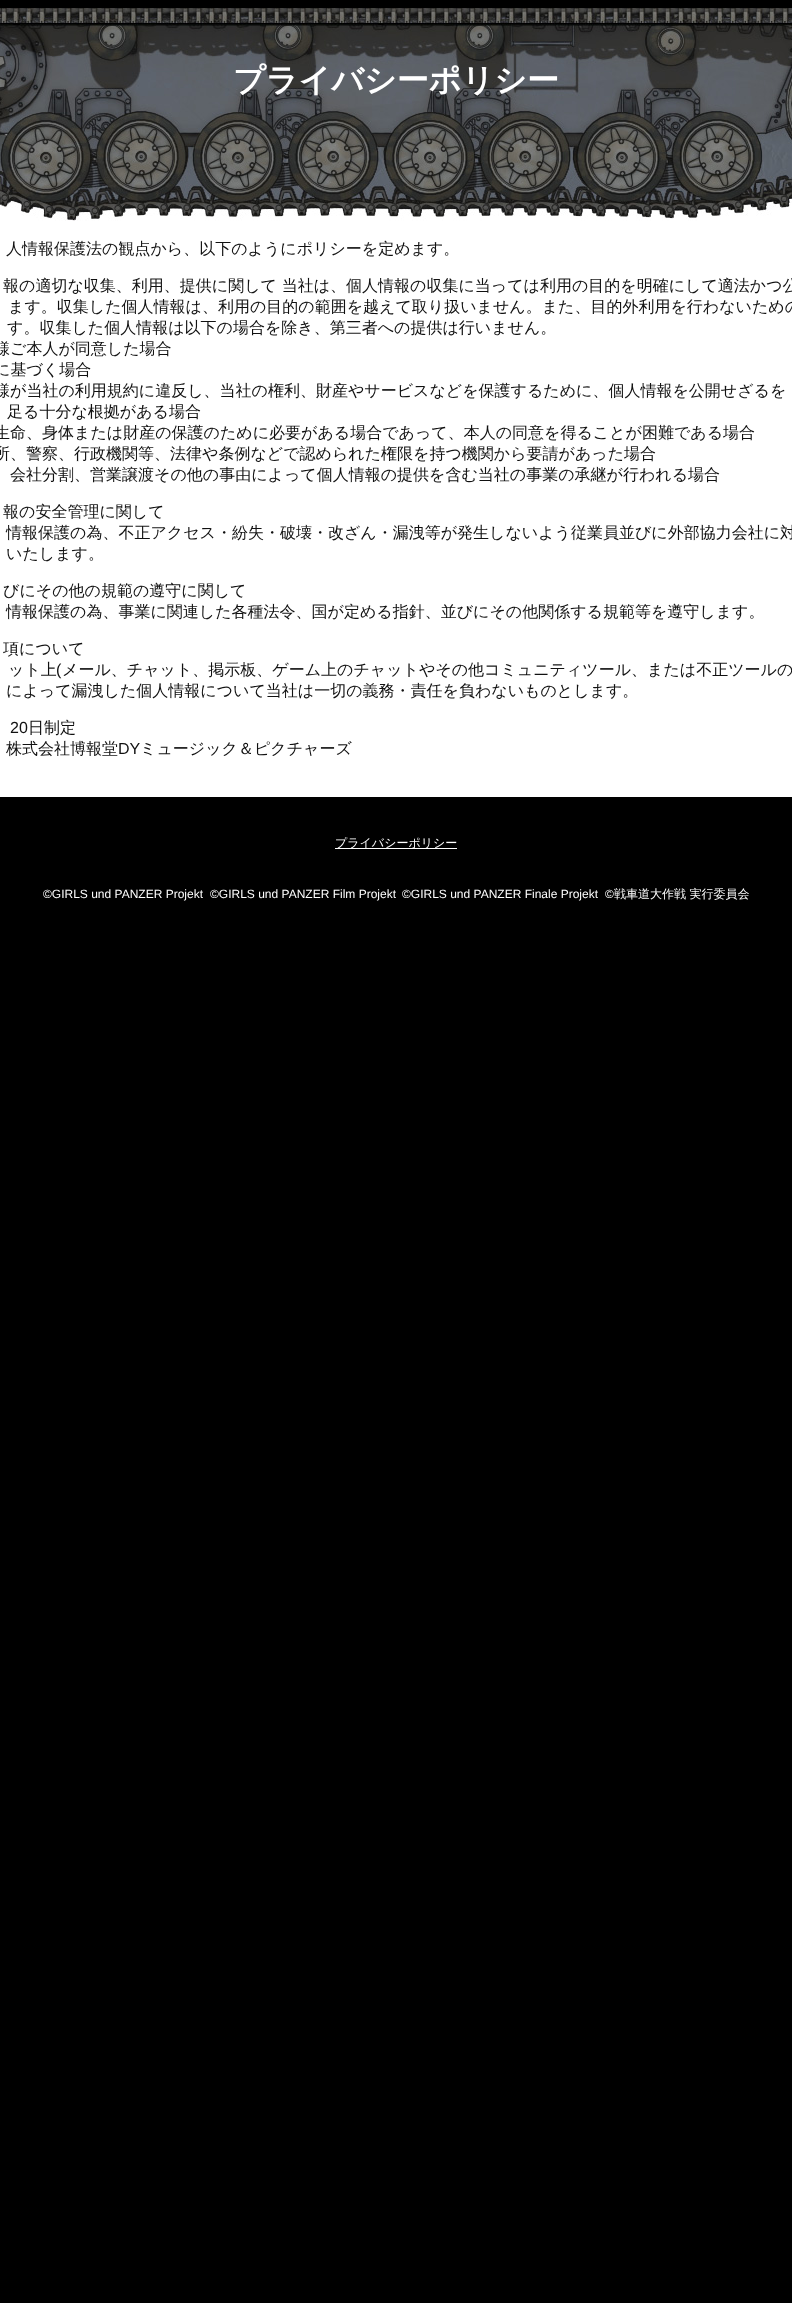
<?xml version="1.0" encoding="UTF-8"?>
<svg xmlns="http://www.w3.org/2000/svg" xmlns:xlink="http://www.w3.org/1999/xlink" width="792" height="2303">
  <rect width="100%" height="100%" fill="#000000" />
  <image x="0" y="8" width="792" height="213" xlink:href="image1.png" />
  <rect y="221" width="792" height="576" fill="#ffffff" />
  <rect x="335" y="848" width="122" height="1" fill="#ffffff" />
  <text x="233" y="91" style="font-family: WenQuanYi Zen Hei; font-size: 32px; font-weight: bold; fill: #ffffff">プライバシーポリシー</text>
  <text x="6" y="254" style="font-family: WenQuanYi Zen Hei; font-size: 16px; font-weight: 500; fill: #111111">人情報保護法の観点から、以下のようにポリシーを定めます。</text>
  <text x="3" y="291" style="font-family: WenQuanYi Zen Hei; font-size: 16px; font-weight: 500; fill: #111111">報の適切な収集、利用、提供に関して 当社は、個人情報の収集に当っては利用の目的を明確にして適法かつ公</text>
  <text x="8" y="312" style="font-family: WenQuanYi Zen Hei; font-size: 16px; font-weight: 500; fill: #111111">ます。収集した個人情報は、利用の目的の範囲を越えて取り扱いません。また、目的外利用を行わないための</text>
  <text x="7" y="333" style="font-family: WenQuanYi Zen Hei; font-size: 16px; font-weight: 500; fill: #111111">す。収集した個人情報は以下の場合を除き、第三者への提供は行いません。</text>
  <text x="-6" y="354" style="font-family: WenQuanYi Zen Hei; font-size: 16px; font-weight: 500; fill: #111111">様ご本人が同意した場合</text>
  <text x="-6" y="375" style="font-family: WenQuanYi Zen Hei; font-size: 16px; font-weight: 500; fill: #111111">に基づく場合</text>
  <text x="-6" y="396" style="font-family: WenQuanYi Zen Hei; font-size: 16px; font-weight: 500; fill: #111111">様が当社の利用規約に違反し、当社の権利、財産やサービスなどを保護するために、個人情報を公開せざるを</text>
  <text x="7" y="417" style="font-family: WenQuanYi Zen Hei; font-size: 16px; font-weight: 500; fill: #111111">足る十分な根拠がある場合</text>
  <text x="-6" y="438" style="font-family: WenQuanYi Zen Hei; font-size: 16px; font-weight: 500; fill: #111111">生命、身体または財産の保護のために必要がある場合であって、本人の同意を得ることが困難である場合</text>
  <text x="-6" y="459" style="font-family: WenQuanYi Zen Hei; font-size: 16px; font-weight: 500; fill: #111111">所、警察、行政機関等、法律や条例などで認められた権限を持つ機関から要請があった場合</text>
  <text x="10" y="480" style="font-family: WenQuanYi Zen Hei; font-size: 16px; font-weight: 500; fill: #111111">会社分割、営業譲渡その他の事由によって個人情報の提供を含む当社の事業の承継が行われる場合</text>
  <text x="3" y="517" style="font-family: WenQuanYi Zen Hei; font-size: 16px; font-weight: 500; fill: #111111">報の安全管理に関して</text>
  <text x="6" y="538" style="font-family: WenQuanYi Zen Hei; font-size: 16px; font-weight: 500; fill: #111111">情報保護の為、不正アクセス・紛失・破壊・改ざん・漏洩等が発生しないよう従業員並びに外部協力会社に対</text>
  <text x="6" y="559" style="font-family: WenQuanYi Zen Hei; font-size: 16px; font-weight: 500; fill: #111111">いたします。</text>
  <text x="3" y="596" style="font-family: WenQuanYi Zen Hei; font-size: 16px; font-weight: 500; fill: #111111">びにその他の規範の遵守に関して</text>
  <text x="6" y="617" style="font-family: WenQuanYi Zen Hei; font-size: 16px; font-weight: 500; fill: #111111">情報保護の為、事業に関連した各種法令、国が定める指針、並びにその他関係する規範等を遵守します。</text>
  <text x="3" y="654" style="font-family: WenQuanYi Zen Hei; font-size: 16px; font-weight: 500; fill: #111111">項について</text>
  <text x="8" y="675" style="font-family: WenQuanYi Zen Hei; font-size: 16px; font-weight: 500; fill: #111111">ット上</text>
  <text x="56" y="675" style="font-family: Liberation Sans; font-size: 16px; fill: #111111">(</text>
  <text x="62" y="675" style="font-family: WenQuanYi Zen Hei; font-size: 16px; font-weight: 500; fill: #111111">メール、チャット、掲示板、ゲーム上のチャットやその他コミュニティツール、または不正ツールの</text>
  <text x="6" y="696" style="font-family: WenQuanYi Zen Hei; font-size: 16px; font-weight: 500; fill: #111111">によって漏洩した個人情報について当社は一切の義務・責任を負わないものとします。</text>
  <text x="10" y="733" style="font-family: Liberation Sans; font-size: 16px; fill: #111111">20</text>
  <text x="28" y="733" style="font-family: WenQuanYi Zen Hei; font-size: 16px; font-weight: 500; fill: #111111">日制定</text>
  <text x="6" y="754" style="font-family: WenQuanYi Zen Hei; font-size: 16px; font-weight: 500; fill: #111111">株式会社博報堂</text>
  <text x="118" y="754" style="font-family: Liberation Sans; font-size: 16px; fill: #111111">DY</text>
  <text x="140" y="754" style="font-family: WenQuanYi Zen Hei; font-size: 16px; font-weight: 500; fill: #111111">ミュージック＆ピクチャーズ</text>
  <text x="335" y="847" style="font-family: WenQuanYi Zen Hei; font-size: 12px; font-weight: 500; fill: #ffffff">プライバシーポリシー</text>
  <text x="43" y="898" style="font-family: Liberation Sans; font-size: 12px; fill: #ffffff">©GIRLS und PANZER Projekt</text>
  <text x="210" y="898" style="font-family: Liberation Sans; font-size: 12px; fill: #ffffff">©GIRLS und PANZER Film Projekt</text>
  <text x="402" y="898" style="font-family: Liberation Sans; font-size: 12px; fill: #ffffff">©GIRLS und PANZER Finale Projekt</text>
  <text x="605" y="898" style="font-family: Liberation Sans; font-size: 12px; fill: #ffffff">©</text>
  <text x="614" y="898" style="font-family: WenQuanYi Zen Hei; font-size: 12px; font-weight: 500; fill: #ffffff">戦車道大作戦 実行委員会</text>
</svg>
